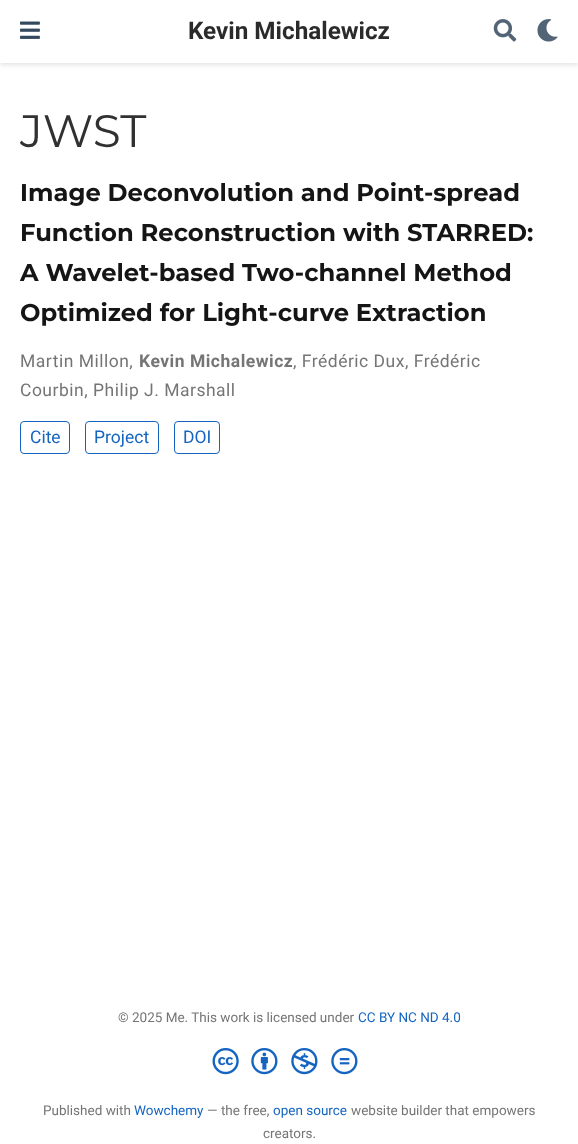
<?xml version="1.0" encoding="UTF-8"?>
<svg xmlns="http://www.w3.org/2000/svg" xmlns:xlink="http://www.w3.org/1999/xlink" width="578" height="1144">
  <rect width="100%" height="100%" fill="#ffffff" />
  <rect y="3" width="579" height="62" fill="#000000" fill-opacity="0.11" filter="blur(2.5px)" />
  <rect width="578" height="63" fill="#ffffff" />
  <image x="20" y="21" width="20" height="18" xlink:href="image1.png" />
  <image x="493" y="19" width="24" height="23" xlink:href="image2.png" />
  <image x="537" y="19" width="21" height="23" xlink:href="image3.png" />
  <rect x="20.5" y="421.5" width="49" height="32" rx="3.5" fill="none" stroke="#1565c0" />
  <rect x="85.5" y="421.5" width="73" height="32" rx="3.5" fill="none" stroke="#1565c0" />
  <rect x="174.5" y="421.5" width="45" height="32" rx="3.5" fill="none" stroke="#1565c0" />
  <image x="212" y="1048" width="27" height="27" xlink:href="image4.png" />
  <image x="251" y="1048" width="27" height="27" xlink:href="image5.png" />
  <image x="291" y="1048" width="27" height="27" xlink:href="image6.png" />
  <image x="331" y="1048" width="27" height="27" xlink:href="image7.png" />
  <text x="188" y="39" style="font-family: Roboto; font-size: 24.25px; font-weight: bold; fill: #2b2b2b">Kevin Michalewicz</text>
  <text x="20" y="147" style="font-family: Montserrat; font-size: 45.5px; fill: #313131">JWST</text>
  <text x="20" y="201" style="font-family: Montserrat; font-size: 24.25px; font-weight: bold; fill: #151515">Image Deconvolution and Point-spread</text>
  <text x="20" y="241" style="font-family: Montserrat; font-size: 24.25px; font-weight: bold; fill: #151515">Function Reconstruction with STARRED:</text>
  <text x="20" y="281" style="font-family: Montserrat; font-size: 24.25px; font-weight: bold; fill: #151515">A Wavelet-based Two-channel Method</text>
  <text x="20" y="321" style="font-family: Montserrat; font-size: 24.25px; font-weight: bold; fill: #151515">Optimized for Light-curve Extraction</text>
  <text x="20" y="367" style="font-family: Roboto; font-size: 17.5px; letter-spacing: 0.5px; fill: #757575">Martin Millon,</text>
  <text x="139" y="367" style="font-family: Roboto; font-size: 17.5px; font-weight: bold; letter-spacing: 0.5px; fill: #757575">Kevin Michalewicz</text>
  <text x="293" y="367" style="font-family: Roboto; font-size: 17.5px; letter-spacing: 0.5px; fill: #757575">, Frédéric Dux, Frédéric</text>
  <text x="20" y="396" style="font-family: Roboto; font-size: 17.5px; letter-spacing: 0.5px; fill: #757575">Courbin, Philip J. Marshall</text>
  <text x="30" y="443" style="font-family: Roboto; font-size: 17.5px; fill: #1565c0">Cite</text>
  <text x="94" y="443" style="font-family: Roboto; font-size: 17.5px; fill: #1565c0">Project</text>
  <text x="183" y="443" style="font-family: Roboto; font-size: 17.5px; fill: #1565c0">DOI</text>
  <text x="118" y="1022" style="font-family: Roboto; font-size: 13.5px; fill: #757575">© 2025 Me. This work is licensed under</text>
  <text x="358" y="1022" style="font-family: Roboto; font-size: 13.5px; fill: #1565c0">CC BY NC ND 4.0</text>
  <text x="43" y="1115" style="font-family: Roboto; font-size: 13.5px; fill: #757575">Published with</text>
  <text x="134" y="1115" style="font-family: Roboto; font-size: 13.5px; fill: #1565c0">Wowchemy</text>
  <text x="207" y="1115" style="font-family: Roboto; font-size: 13.5px; fill: #757575">— the free,</text>
  <text x="273" y="1115" style="font-family: Roboto; font-size: 13.5px; fill: #1565c0">open source</text>
  <text x="351" y="1115" style="font-family: Roboto; font-size: 13.5px; fill: #757575">website builder that empowers</text>
  <text x="263" y="1138" style="font-family: Roboto; font-size: 13.5px; fill: #757575">creators.</text>
</svg>
